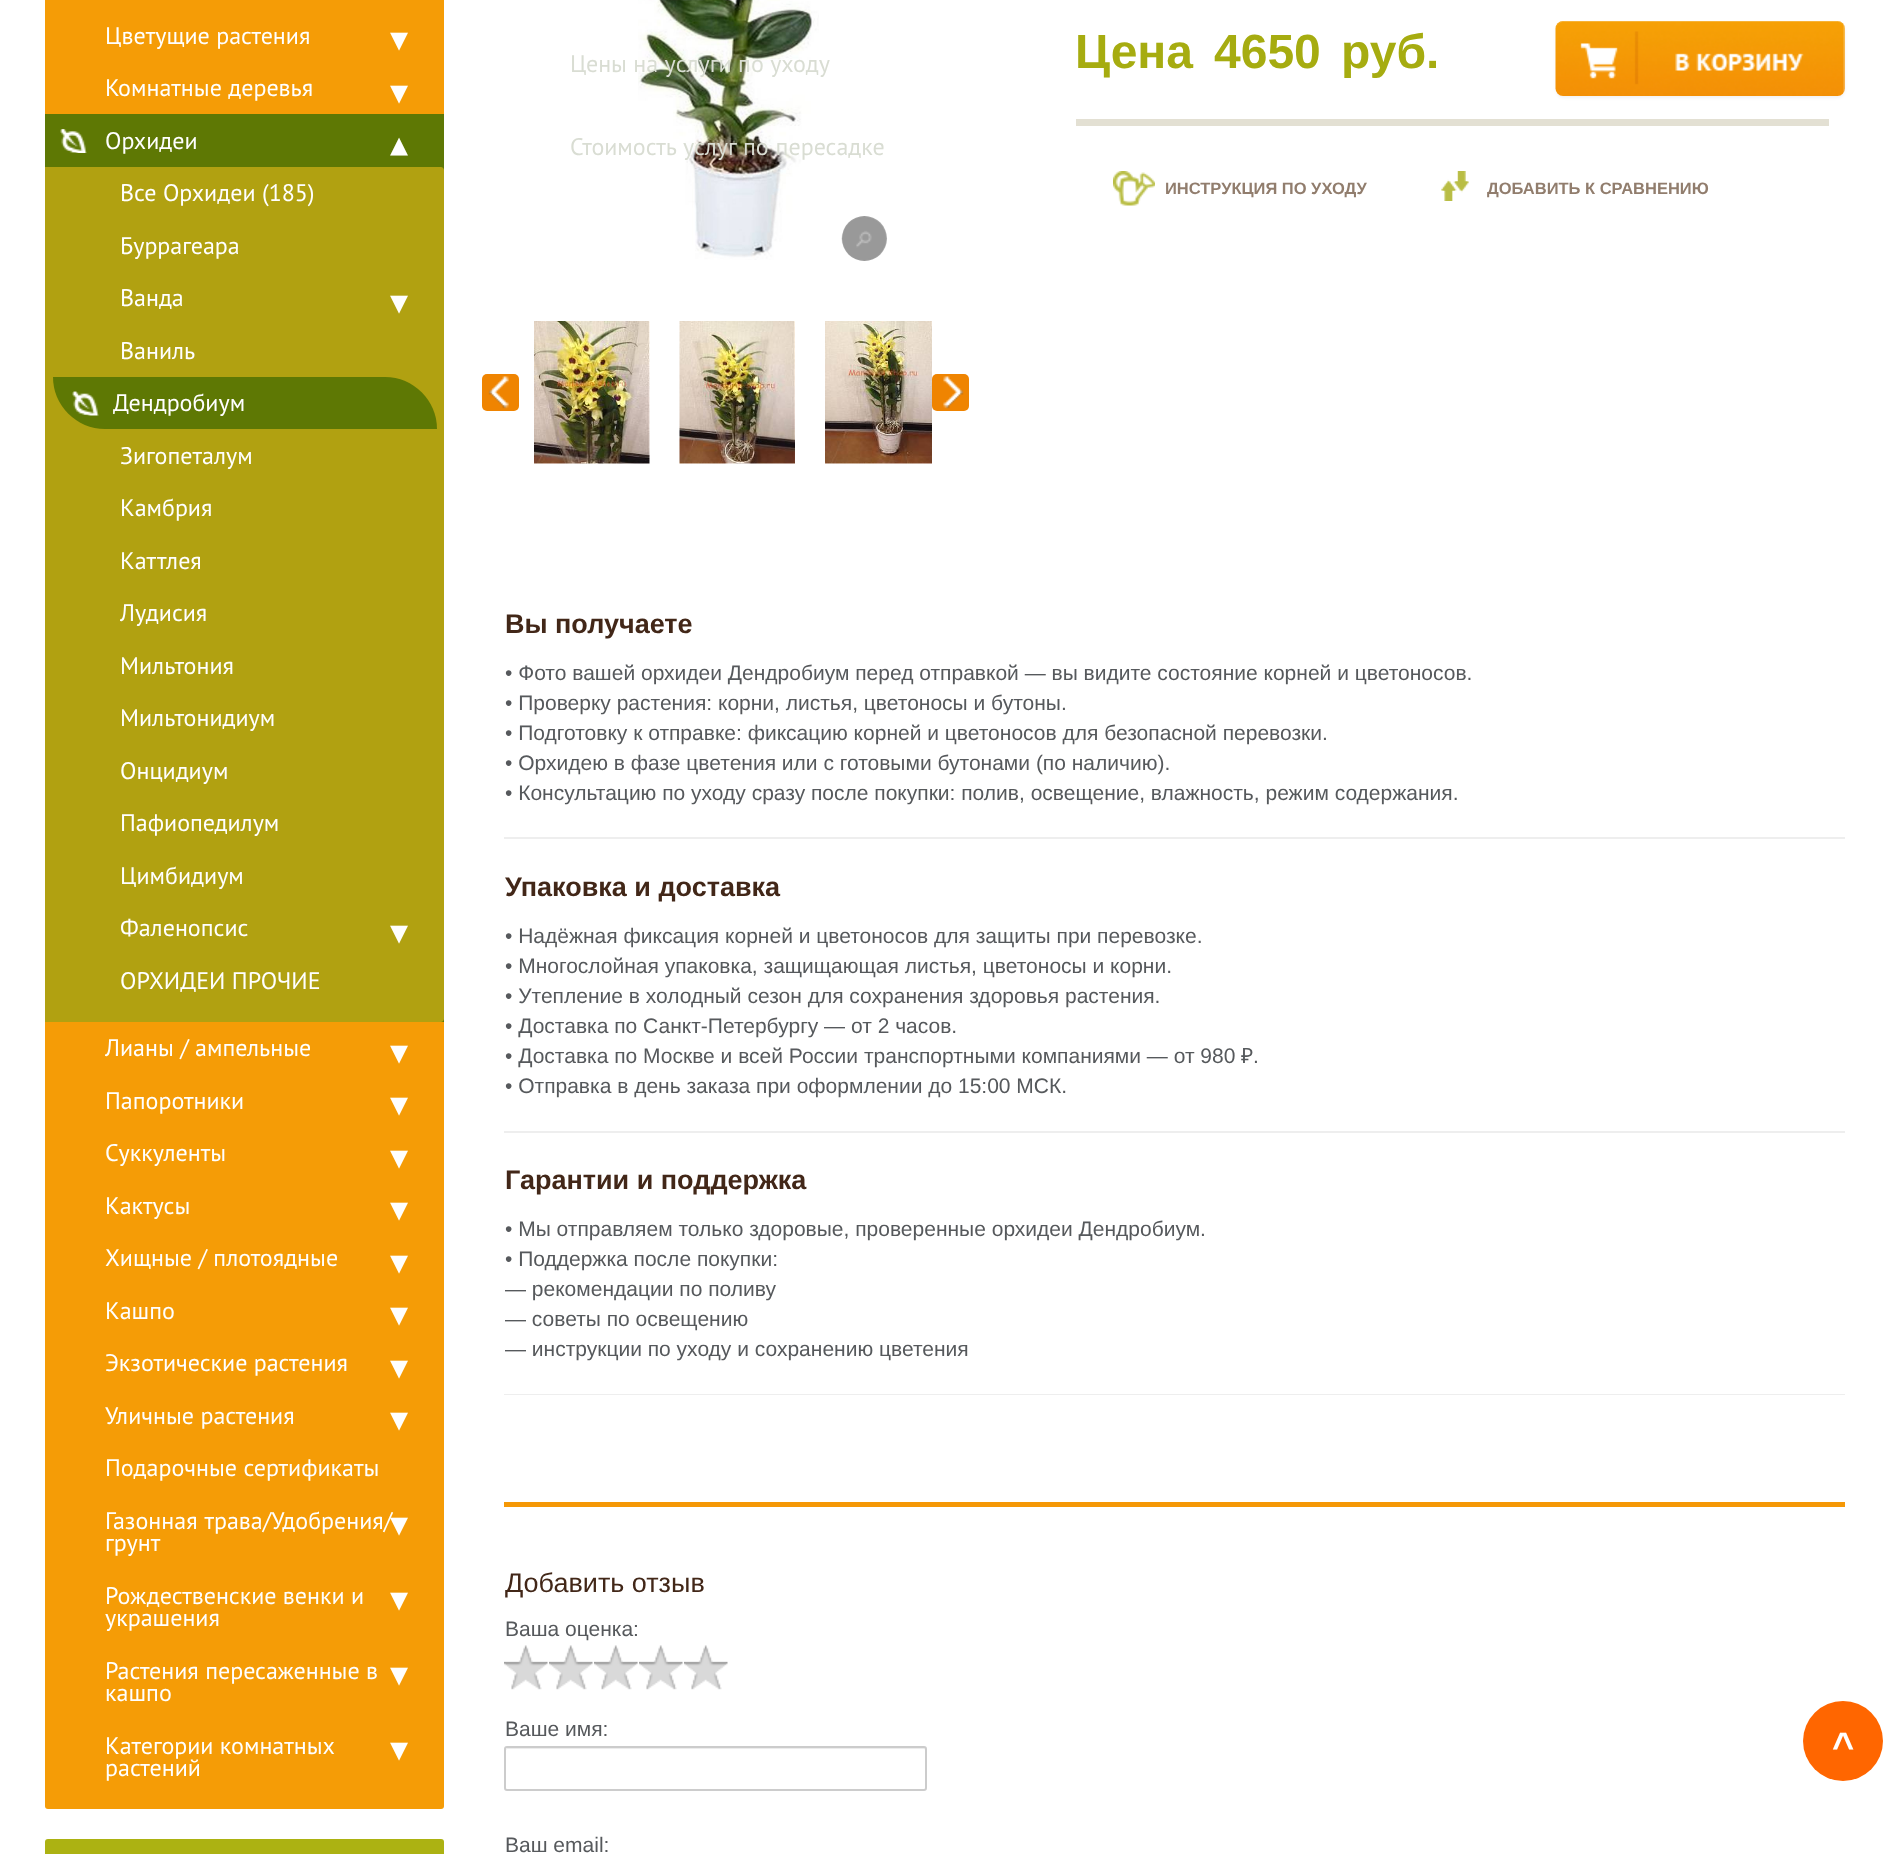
<?xml version="1.0" encoding="UTF-8"?>
<svg xmlns="http://www.w3.org/2000/svg" xmlns:xlink="http://www.w3.org/1999/xlink" width="1890" height="1854">
  <rect width="100%" height="100%" fill="#ffffff" />
  <rect x="45" y="-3" width="399" height="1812" rx="3" fill="#f59c06" />
  <rect x="45" y="114" width="399" height="908" fill="#5e7804" />
  <image x="60" y="129" width="27" height="24" xlink:href="image1.png" />
  <path d="M 45 167 h 396 c 1.5 0 3 1.5 3 3 v 849 c 0 1.5 -1.5 3 -3 3 h -396 z" fill="#b1a111" />
  <path d="M 53 377 h 332 c 28.5 0 52 23.5 52 52 h -332 c -28.5 0 -52 -23.5 -52 -52 z" fill="#5e7804" />
  <image x="72" y="391" width="27" height="25" xlink:href="image2.png" />
  <rect x="45" y="1839" width="399" height="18" rx="3" fill="#acb212" />
  <image x="638" y="0" width="181" height="260" xlink:href="image3.png" />
  <circle cx="864.5" cy="238.5" r="22.5" fill="#b3b3b3" />
  <image x="841" y="216" width="46" height="45" xlink:href="image4.png" />
  <image x="534" y="321" width="116" height="143" xlink:href="image5.png" />
  <image x="679" y="321" width="116" height="143" xlink:href="image6.png" />
  <image x="825" y="321" width="107" height="143" xlink:href="image7.png" />
  <rect x="482" y="374" width="37" height="37" rx="5" fill="#ef8401" />
  <image x="488" y="376" width="21" height="33" xlink:href="image8.png" />
  <rect x="932" y="374" width="37" height="37" rx="5" fill="#ef8401" />
  <image x="943" y="376" width="21" height="33" xlink:href="image9.png" />
  <rect x="1556" y="23" width="289" height="75" rx="8" fill="#000000" fill-opacity="0.05" filter="blur(1.5px)" />
  <image x="1555" y="21" width="290" height="75" xlink:href="image10.png" />
  <path d="M 1563 22 h 275 c 4 0 7 4 7 8 v -1 c 0 -4 -4 -8 -8 -8 h -273 c -4 0 -8 4 -8 8 v 1 c 0 -4 3 -8 7 -8 z" fill="#ffffff" fill-opacity="0.2" />
  <rect x="1076" y="119" width="753" height="7" fill="#e3e0d3" />
  <image x="1113" y="171" width="42" height="35" xlink:href="image11.png" />
  <image x="1441" y="171" width="28" height="30" xlink:href="image12.png" />
  <image x="1441" y="171" width="28" height="30" xlink:href="image13.png" />
  <rect x="504" y="837" width="1341" height="2" fill="#eeeeee" />
  <rect x="504" y="1131" width="1341" height="2" fill="#eeeeee" />
  <rect x="504" y="1394" width="1341" height="1" fill="#eeeeee" />
  <rect x="504" y="1502" width="1341" height="5" fill="#f59806" />
  <image x="504" y="1645" width="44" height="45" xlink:href="image14.png" />
  <image x="549" y="1645" width="44" height="45" xlink:href="image15.png" />
  <image x="594" y="1645" width="44" height="45" xlink:href="image16.png" />
  <image x="639" y="1645" width="44" height="45" xlink:href="image15.png" />
  <image x="684" y="1645" width="44" height="45" xlink:href="image15.png" />
  <path d="M 507 1749 h 417 l 2 1 c 0 -1 0 -2 -2 -2 h -416 c -2 0 -2 1 -2 2 z" fill="#ececec" />
  <rect x="505" y="1747" width="421" height="43" rx="2" fill="none" stroke="#cccccc" stroke-width="2" />
  <circle cx="1843" cy="1741" r="40" fill="#ff6600" />
  <text x="105" y="44" style="font-family: PT Sans; font-size: 24px; fill: #ffffff">Цветущие растения</text>
  <text x="390" y="51" style="font-family: DejaVu Sans; font-size: 36px; fill: #ffffff">▾</text>
  <text x="105" y="96" style="font-family: PT Sans; font-size: 24px; fill: #ffffff">Комнатные деревья</text>
  <text x="390" y="104" style="font-family: DejaVu Sans; font-size: 36px; fill: #ffffff">▾</text>
  <text x="105" y="149" style="font-family: PT Sans; font-size: 24px; fill: #ffffff">Орхидеи</text>
  <text x="390" y="156" style="font-family: DejaVu Sans; font-size: 36px; fill: #ffffff">▴</text>
  <text x="120" y="201" style="font-family: PT Sans; font-size: 24px; fill: #ffffff">Все Орхидеи (185)</text>
  <text x="120" y="254" style="font-family: PT Sans; font-size: 24px; fill: #ffffff">Буррагеара</text>
  <text x="120" y="306" style="font-family: PT Sans; font-size: 24px; fill: #ffffff">Ванда</text>
  <text x="390" y="314" style="font-family: DejaVu Sans; font-size: 36px; fill: #ffffff">▾</text>
  <text x="120" y="359" style="font-family: PT Sans; font-size: 24px; fill: #ffffff">Ваниль</text>
  <text x="113" y="411" style="font-family: PT Sans; font-size: 24px; fill: #ffffff">Дендробиум</text>
  <text x="120" y="464" style="font-family: PT Sans; font-size: 24px; fill: #ffffff">Зигопеталум</text>
  <text x="120" y="516" style="font-family: PT Sans; font-size: 24px; fill: #ffffff">Камбрия</text>
  <text x="120" y="569" style="font-family: PT Sans; font-size: 24px; fill: #ffffff">Каттлея</text>
  <text x="120" y="621" style="font-family: PT Sans; font-size: 24px; fill: #ffffff">Лудисия</text>
  <text x="120" y="674" style="font-family: PT Sans; font-size: 24px; fill: #ffffff">Мильтония</text>
  <text x="120" y="726" style="font-family: PT Sans; font-size: 24px; fill: #ffffff">Мильтонидиум</text>
  <text x="120" y="779" style="font-family: PT Sans; font-size: 24px; fill: #ffffff">Онцидиум</text>
  <text x="120" y="831" style="font-family: PT Sans; font-size: 24px; fill: #ffffff">Пафиопедилум</text>
  <text x="120" y="884" style="font-family: PT Sans; font-size: 24px; fill: #ffffff">Цимбидиум</text>
  <text x="120" y="936" style="font-family: PT Sans; font-size: 24px; fill: #ffffff">Фаленопсис</text>
  <text x="390" y="944" style="font-family: DejaVu Sans; font-size: 36px; fill: #ffffff">▾</text>
  <text x="120" y="989" style="font-family: PT Sans; font-size: 24px; fill: #ffffff">ОРХИДЕИ ПРОЧИЕ</text>
  <text x="105" y="1056" style="font-family: PT Sans; font-size: 24px; fill: #ffffff">Лианы / ампельные</text>
  <text x="390" y="1064" style="font-family: DejaVu Sans; font-size: 36px; fill: #ffffff">▾</text>
  <text x="105" y="1109" style="font-family: PT Sans; font-size: 24px; fill: #ffffff">Папоротники</text>
  <text x="390" y="1116" style="font-family: DejaVu Sans; font-size: 36px; fill: #ffffff">▾</text>
  <text x="105" y="1161" style="font-family: PT Sans; font-size: 24px; fill: #ffffff">Суккуленты</text>
  <text x="390" y="1169" style="font-family: DejaVu Sans; font-size: 36px; fill: #ffffff">▾</text>
  <text x="105" y="1214" style="font-family: PT Sans; font-size: 24px; fill: #ffffff">Кактусы</text>
  <text x="390" y="1221" style="font-family: DejaVu Sans; font-size: 36px; fill: #ffffff">▾</text>
  <text x="105" y="1266" style="font-family: PT Sans; font-size: 24px; fill: #ffffff">Хищные / плотоядные</text>
  <text x="390" y="1274" style="font-family: DejaVu Sans; font-size: 36px; fill: #ffffff">▾</text>
  <text x="105" y="1319" style="font-family: PT Sans; font-size: 24px; fill: #ffffff">Кашпо</text>
  <text x="390" y="1326" style="font-family: DejaVu Sans; font-size: 36px; fill: #ffffff">▾</text>
  <text x="105" y="1371" style="font-family: PT Sans; font-size: 24px; fill: #ffffff">Экзотические растения</text>
  <text x="390" y="1379" style="font-family: DejaVu Sans; font-size: 36px; fill: #ffffff">▾</text>
  <text x="105" y="1424" style="font-family: PT Sans; font-size: 24px; fill: #ffffff">Уличные растения</text>
  <text x="390" y="1431" style="font-family: DejaVu Sans; font-size: 36px; fill: #ffffff">▾</text>
  <text x="105" y="1476" style="font-family: PT Sans; font-size: 24px; fill: #ffffff">Подарочные сертификаты</text>
  <text x="105" y="1529" word-spacing="1" style="font-family: PT Sans; font-size: 24px; fill: #ffffff">Газонная трава/Удобрения/</text>
  <text x="105" y="1551" style="font-family: PT Sans; font-size: 24px; fill: #ffffff">грунт</text>
  <text x="390" y="1536" style="font-family: DejaVu Sans; font-size: 36px; fill: #ffffff">▾</text>
  <text x="105" y="1604" style="font-family: PT Sans; font-size: 24px; fill: #ffffff">Рождественские венки и</text>
  <text x="105" y="1626" style="font-family: PT Sans; font-size: 24px; fill: #ffffff">украшения</text>
  <text x="390" y="1611" style="font-family: DejaVu Sans; font-size: 36px; fill: #ffffff">▾</text>
  <text x="105" y="1679" style="font-family: PT Sans; font-size: 24px; fill: #ffffff">Растения пересаженные в</text>
  <text x="105" y="1701" style="font-family: PT Sans; font-size: 24px; fill: #ffffff">кашпо</text>
  <text x="390" y="1686" style="font-family: DejaVu Sans; font-size: 36px; fill: #ffffff">▾</text>
  <text x="105" y="1754" style="font-family: PT Sans; font-size: 24px; fill: #ffffff">Категории комнатных</text>
  <text x="105" y="1776" style="font-family: PT Sans; font-size: 24px; fill: #ffffff">растений</text>
  <text x="390" y="1761" style="font-family: DejaVu Sans; font-size: 36px; fill: #ffffff">▾</text>
  <text x="1075" y="68" style="font-family: Liberation Sans; font-size: 48px; font-weight: bold; fill: #a6ac10">Цена</text>
  <text x="1214" y="68" style="font-family: Liberation Sans; font-size: 48px; font-weight: bold; fill: #a6ac10">4650</text>
  <text x="1341" y="68" style="font-family: Liberation Sans; font-size: 48px; font-weight: bold; fill: #a6ac10">руб.</text>
  <text x="1165" y="194" style="font-family: Liberation Sans; font-size: 16.5px; font-weight: bold; fill: #917d6d">ИНСТРУКЦИЯ ПО УХОДУ</text>
  <text x="1487" y="194" style="font-family: Liberation Sans; font-size: 16.5px; font-weight: bold; fill: #917d6d">ДОБАВИТЬ К СРАВНЕНИЮ</text>
  <text x="505" y="633" style="font-family: Liberation Sans; font-size: 27px; font-weight: bold; fill: #422718">Вы получаете</text>
  <text x="505" y="680" style="font-family: Liberation Sans; font-size: 21px; fill: #56595c">• Фото вашей орхидеи Дендробиум перед отправкой — вы видите состояние корней и цветоносов.</text>
  <text x="505" y="710" style="font-family: Liberation Sans; font-size: 21px; fill: #56595c">• Проверку растения: корни, листья, цветоносы и бутоны.</text>
  <text x="505" y="740" style="font-family: Liberation Sans; font-size: 21px; fill: #56595c">• Подготовку к отправке: фиксацию корней и цветоносов для безопасной перевозки.</text>
  <text x="505" y="770" style="font-family: Liberation Sans; font-size: 21px; fill: #56595c">• Орхидею в фазе цветения или с готовыми бутонами (по наличию).</text>
  <text x="505" y="800" style="font-family: Liberation Sans; font-size: 21px; fill: #56595c">• Консультацию по уходу сразу после покупки: полив, освещение, влажность, режим содержания.</text>
  <text x="505" y="896" style="font-family: Liberation Sans; font-size: 27px; font-weight: bold; fill: #422718">Упаковка и доставка</text>
  <text x="505" y="943" style="font-family: Liberation Sans; font-size: 21px; fill: #56595c">• Надёжная фиксация корней и цветоносов для защиты при перевозке.</text>
  <text x="505" y="973" style="font-family: Liberation Sans; font-size: 21px; fill: #56595c">• Многослойная упаковка, защищающая листья, цветоносы и корни.</text>
  <text x="505" y="1003" style="font-family: Liberation Sans; font-size: 21px; fill: #56595c">• Утепление в холодный сезон для сохранения здоровья растения.</text>
  <text x="505" y="1033" style="font-family: Liberation Sans; font-size: 21px; fill: #56595c">• Доставка по Санкт-Петербургу — от 2 часов.</text>
  <text x="505" y="1063" style="font-family: Liberation Sans; font-size: 21px; fill: #56595c">• Доставка по Москве и всей России транспортными компаниями — от 980</text>
  <text x="1241" y="1063" style="font-family: Noto Sans; font-size: 21px; fill: #56595c">₽</text>
  <text x="1253" y="1063" style="font-family: Liberation Sans; font-size: 21px; fill: #56595c">.</text>
  <text x="505" y="1093" style="font-family: Liberation Sans; font-size: 21px; fill: #56595c">• Отправка в день заказа при оформлении до 15:00 МСК.</text>
  <text x="505" y="1189" style="font-family: Liberation Sans; font-size: 27px; font-weight: bold; fill: #422718">Гарантии и поддержка</text>
  <text x="505" y="1236" style="font-family: Liberation Sans; font-size: 21px; fill: #56595c">• Мы отправляем только здоровые, проверенные орхидеи Дендробиум.</text>
  <text x="505" y="1266" style="font-family: Liberation Sans; font-size: 21px; fill: #56595c">• Поддержка после покупки:</text>
  <text x="505" y="1296" style="font-family: Liberation Sans; font-size: 21px; fill: #56595c">— рекомендации по поливу</text>
  <text x="505" y="1326" style="font-family: Liberation Sans; font-size: 21px; fill: #56595c">— советы по освещению</text>
  <text x="505" y="1356" style="font-family: Liberation Sans; font-size: 21px; fill: #56595c">— инструкции по уходу и сохранению цветения</text>
  <text x="505" y="1592" style="font-family: Liberation Sans; font-size: 27px; fill: #422718">Добавить отзыв</text>
  <text x="505" y="1636" style="font-family: Liberation Sans; font-size: 21px; fill: #56595c">Ваша оценка:</text>
  <text x="505" y="1736" style="font-family: Liberation Sans; font-size: 21px; fill: #56595c">Ваше имя:</text>
  <text x="505" y="1852" style="font-family: Liberation Sans; font-size: 21px; fill: #56595c">Ваш email:</text>
  <text x="570" y="72" style="font-family: PT Sans; font-size: 24px; fill: #d9ddd3">Цены на услуги по уходу</text>
  <text x="570" y="155" word-spacing="0.5" style="font-family: PT Sans; font-size: 24px; fill: #d9ddd3">Стоимость услуг по пересадке</text>
  <text x="1832" y="1759" style="font-family: Liberation Sans; font-size: 38px; font-weight: bold; fill: #ffffff">^</text>
</svg>
